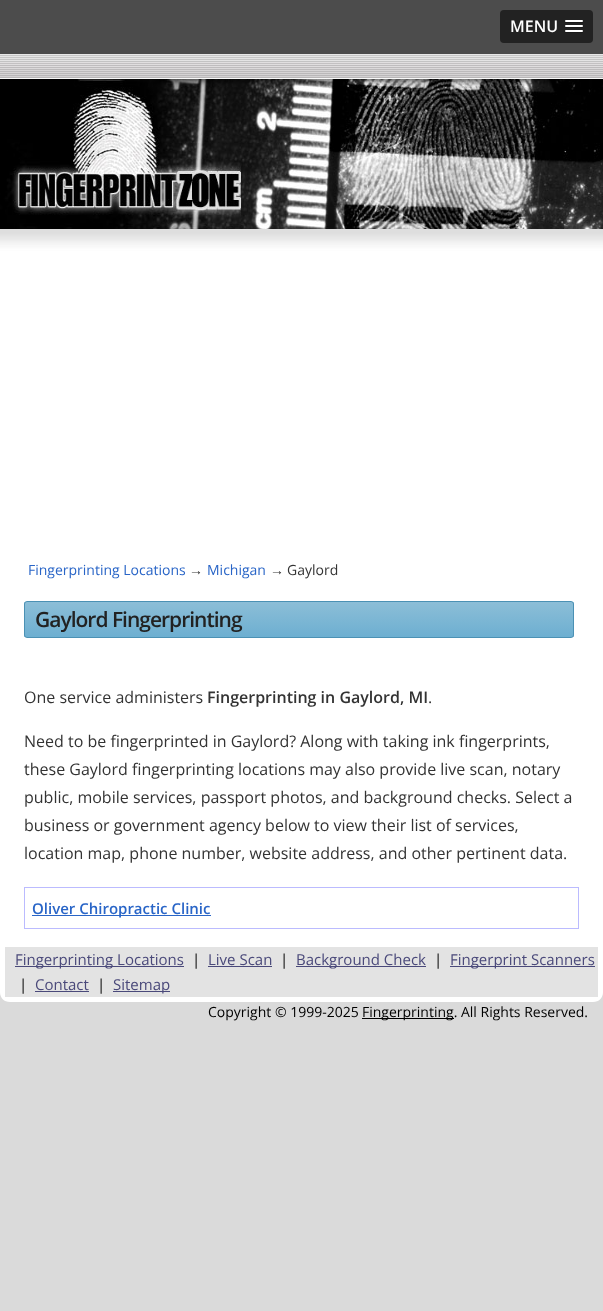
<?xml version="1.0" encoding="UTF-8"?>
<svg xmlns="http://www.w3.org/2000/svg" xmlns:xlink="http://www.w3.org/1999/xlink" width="603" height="1311">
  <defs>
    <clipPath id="clip1"><rect x="24" y="601" width="550" height="37" rx="3" /></clipPath>
    <linearGradient id="g1" gradientUnits="userSpaceOnUse" x1="25" y1="602" x2="25" y2="637"><stop offset="0" stop-color="#8cbed7" /><stop offset="1" stop-color="#6dafd1" /></linearGradient>
  </defs>
  <rect width="100%" height="100%" fill="#dadada" />
  <rect width="603" height="54" fill="#4c4c4c" />
  <rect x="500" y="10" width="93" height="33" rx="4" fill="#222222" />
  <path d="M 565 21.5 c -1 2 3.5 1.5 3.5 1.5 h 11 c 0 0 4.5 0.5 3.5 -1.5 c -1 1 -7.5 0.5 -9 0.5 c -1.5 0 -8 0.5 -9 -0.5 z" fill="#1a1a1a" />
  <rect x="565" y="20" width="18" height="2" rx="1" fill="#ffffff" />
  <path d="M 565 26.5 c -1 2 3.5 1.5 3.5 1.5 h 11 c 0 0 4.5 0.5 3.5 -1.5 c -1 1 -7.5 0.5 -9 0.5 c -1.5 0 -8 0.5 -9 -0.5 z" fill="#1a1a1a" />
  <rect x="565" y="25" width="18" height="2" rx="1" fill="#ffffff" />
  <path d="M 565 31.5 c -1 2 3.5 1.5 3.5 1.5 h 11 c 0 0 4.5 0.5 3.5 -1.5 c -1 1 -7.5 0.5 -9 0.5 c -1.5 0 -8 0.5 -9 -0.5 z" fill="#1a1a1a" />
  <rect x="565" y="30" width="18" height="2" rx="1" fill="#ffffff" />
  <image x="0" y="54" width="603" height="25" xlink:href="image1.png" />
  <image x="0" y="79" width="241" height="150" xlink:href="image2.png" />
  <image x="241" y="79" width="362" height="150" xlink:href="image3.png" />
  <image x="0" y="229" width="603" height="22" xlink:href="image4.png" />
  <rect y="251" width="603" height="696" fill="#ffffff" />
  <g clip-path="url(#clip1)">
    <rect x="24" y="602" width="550" height="35" fill="url(#g1)" />
  </g>
  <rect x="24.5" y="601.5" width="549" height="36" rx="2.5" fill="none" stroke="#4b91b4" />
  <rect x="24" y="887" width="555" height="1" fill="#bbbbff" />
  <rect x="578" y="888" width="1" height="41" fill="#bbbbff" />
  <rect x="24" y="928" width="555" height="1" fill="#bbbbff" />
  <rect x="24" y="888" width="1" height="41" fill="#bbbbff" />
  <rect x="32" y="915" width="179" height="1" fill="#2965c7" />
  <path d="M 0 947 h 603 v 45 c 0 6 -4 10 -10 10 h -583 c -6 0 -10 -4 -10 -10 z m 5 0 h 593 v 45 c 0 3 -2 5 -5 5 h -583 c -3 0 -5 -2 -5 -5 z" fill="#ffffff" fill-rule="evenodd" />
  <rect x="5" y="947" width="593" height="50" fill="#e3e3e3" />
  <rect x="15" y="966" width="169" height="1" fill="#4a497a" />
  <rect x="208" y="966" width="64" height="1" fill="#4a497a" />
  <rect x="296" y="966" width="130" height="1" fill="#4a497a" />
  <rect x="450" y="966" width="145" height="1" fill="#4a497a" />
  <rect x="35" y="991" width="54" height="1" fill="#4a497a" />
  <rect x="113" y="991" width="57" height="1" fill="#4a497a" />
  <rect x="362" y="1018" width="92" height="1" fill="#000000" />
  <text x="510" y="32" style="font-family: Open Sans; font-size: 16px; font-weight: 600; fill: #ffffff">MENU</text>
  <text x="28" y="575" style="font-family: Open Sans; font-size: 14px; fill: #2965c7">Fingerprinting Locations</text>
  <text x="189" y="575" style="font-family: Liberation Sans; font-size: 14px; fill: #333333">→</text>
  <text x="207" y="575" style="font-family: Open Sans; font-size: 14px; fill: #2965c7">Michigan</text>
  <text x="270" y="575" style="font-family: Liberation Sans; font-size: 14px; fill: #333333">→</text>
  <text x="287" y="575" style="font-family: Open Sans; font-size: 14px; fill: #333333">Gaylord</text>
  <text x="35" y="627" style="font-family: Open Sans; font-size: 21px; font-weight: 600; letter-spacing: -1px; fill: #222222">Gaylord Fingerprinting</text>
  <text x="24" y="703" style="font-family: Open Sans; font-size: 16px; fill: #333333">One service administers</text>
  <text x="207" y="703" style="font-family: Open Sans; font-size: 16px; font-weight: 600; fill: #333333">Fingerprinting in Gaylord, MI</text>
  <text x="428" y="703" style="font-family: Open Sans; font-size: 16px; fill: #333333">.</text>
  <text x="24" y="747" style="font-family: Open Sans; font-size: 16px; fill: #333333">Need to be fingerprinted in Gaylord? Along with taking ink fingerprints,</text>
  <text x="24" y="775" style="font-family: Open Sans; font-size: 16px; fill: #333333">these Gaylord fingerprinting locations may also provide live scan, notary</text>
  <text x="24" y="803" style="font-family: Open Sans; font-size: 16px; fill: #333333">public, mobile services, passport photos, and background checks. Select a</text>
  <text x="24" y="831" style="font-family: Open Sans; font-size: 16px; fill: #333333">business or government agency below to view their list of services,</text>
  <text x="24" y="859" style="font-family: Open Sans; font-size: 16px; fill: #333333">location map, phone number, website address, and other pertinent data.</text>
  <text x="32" y="914" style="font-family: Open Sans; font-size: 15px; font-weight: 600; fill: #2965c7">Oliver Chiropractic Clinic</text>
  <text x="15" y="965" style="font-family: Open Sans; font-size: 15px; fill: #4a497a">Fingerprinting Locations</text>
  <text x="192" y="965" style="font-family: Open Sans; font-size: 15px; fill: #000000">|</text>
  <text x="208" y="965" style="font-family: Open Sans; font-size: 15px; fill: #4a497a">Live Scan</text>
  <text x="280" y="965" style="font-family: Open Sans; font-size: 15px; fill: #000000">|</text>
  <text x="296" y="965" style="font-family: Open Sans; font-size: 15px; fill: #4a497a">Background Check</text>
  <text x="434" y="965" style="font-family: Open Sans; font-size: 15px; fill: #000000">|</text>
  <text x="450" y="965" style="font-family: Open Sans; font-size: 15px; fill: #4a497a">Fingerprint Scanners</text>
  <text x="19" y="990" style="font-family: Open Sans; font-size: 15px; fill: #000000">|</text>
  <text x="35" y="990" style="font-family: Open Sans; font-size: 15px; fill: #4a497a">Contact</text>
  <text x="97" y="990" style="font-family: Open Sans; font-size: 15px; fill: #000000">|</text>
  <text x="113" y="990" style="font-family: Open Sans; font-size: 15px; fill: #4a497a">Sitemap</text>
  <text x="208" y="1017" style="font-family: Open Sans; font-size: 14px; fill: #000000">Copyright © 1999-2025</text>
  <text x="362" y="1017" style="font-family: Open Sans; font-size: 14px; fill: #000000">Fingerprinting. All Rights Reserved.</text>
</svg>
